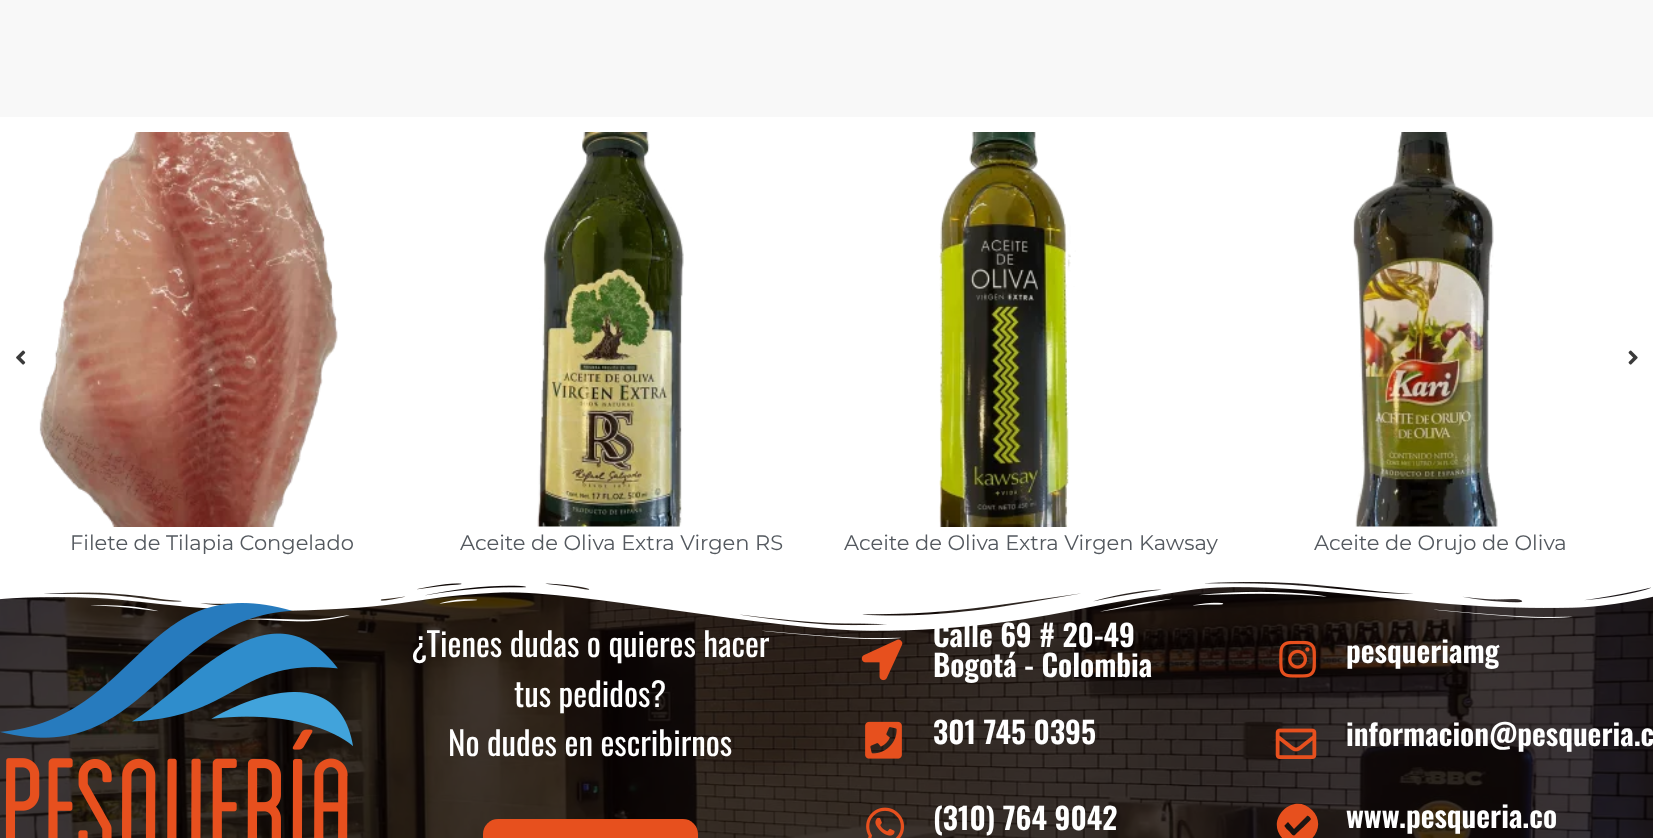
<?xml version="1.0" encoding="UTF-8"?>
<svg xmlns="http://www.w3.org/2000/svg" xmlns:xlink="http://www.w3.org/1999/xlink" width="1653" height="838">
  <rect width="100%" height="100%" fill="#ffffff" />
  <rect width="1653" height="117" fill="#f8f8f8" />
  <image x="16" y="350" width="10" height="15" xlink:href="image1.png" />
  <image x="1628" y="350" width="10" height="15" xlink:href="image2.png" />
  <image x="39" y="132" width="299" height="395" xlink:href="image3.png" />
  <image x="537" y="132" width="147" height="395" xlink:href="image4.png" />
  <image x="939" y="132" width="137" height="395" xlink:href="image5.png" />
  <image x="1352" y="132" width="146" height="395" xlink:href="image6.png" />
  <image x="0" y="582" width="1653" height="256" xlink:href="image8.png" />
  <image x="0" y="574" width="1653" height="66" xlink:href="image7.png" />
  <image x="0" y="603" width="353" height="235" xlink:href="image9.png" />
  <rect x="483" y="819" width="215" height="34" rx="15" fill="#e7501e" />
  <image x="861" y="639" width="42" height="42" xlink:href="image10.png" />
  <image x="865" y="721" width="37" height="38" xlink:href="image11.png" />
  <image x="866" y="807" width="38" height="31" xlink:href="image12.png" />
  <image x="1279" y="640" width="37" height="38" xlink:href="image13.png" />
  <image x="1275" y="728" width="42" height="31" xlink:href="image14.png" />
  <path d="M 1312 810 c 19 19 -10 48 -29 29 c -19 -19 10 -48 29 -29 z m -17 25 c 2 -2 16 -15 16 -16 c -1 -1 -2 -4 -4 -3 l -13 13 l -6 -7 l -3 3 c -2 1 3 5 4 6 c 1 1 4 6 6 4 z" fill="#e7501e" />
  <text x="70" y="550" style="font-family: Montserrat; font-size: 21px; fill: #54595f">Filete de Tilapia Congelado</text>
  <text x="460" y="550" style="font-family: Montserrat; font-size: 21px; fill: #54595f">Aceite de Oliva Extra Virgen RS</text>
  <text x="844" y="550" style="font-family: Montserrat; font-size: 21px; fill: #54595f">Aceite de Oliva Extra Virgen Kawsay</text>
  <text x="1314" y="550" style="font-family: Montserrat; font-size: 21px; fill: #54595f">Aceite de Orujo de Oliva</text>
  <text x="411" y="657" style="font-family: Oswald; font-size: 33px; fill: #ffffff">¿Tienes dudas o quieres hacer</text>
  <text x="514" y="707" style="font-family: Oswald; font-size: 33px; fill: #ffffff">tus pedidos?</text>
  <text x="448" y="756" style="font-family: Oswald; font-size: 33px; fill: #ffffff">No dudes en escribirnos</text>
  <text x="933" y="647" style="font-family: Oswald; font-size: 30px; font-weight: 600; fill: #ffffff">Calle 69 # 20-49</text>
  <text x="933" y="677" style="font-family: Oswald; font-size: 30px; font-weight: 600; fill: #ffffff">Bogotá - Colombia</text>
  <text x="933" y="744" style="font-family: Oswald; font-size: 30px; font-weight: 600; fill: #ffffff">301 745 0395</text>
  <text x="933" y="830" style="font-family: Oswald; font-size: 30px; font-weight: 600; fill: #ffffff">(310) 764 9042</text>
  <text x="1346" y="663" style="font-family: Oswald; font-size: 30px; font-weight: 600; fill: #ffffff">pesqueriamg</text>
  <text x="1346" y="746" style="font-family: Oswald; font-size: 30px; font-weight: 600; fill: #ffffff">informacion@pesqueria.c</text>
  <text x="1346" y="828" style="font-family: Oswald; font-size: 30px; font-weight: 600; fill: #ffffff">www.pesqueria.co</text>
</svg>
